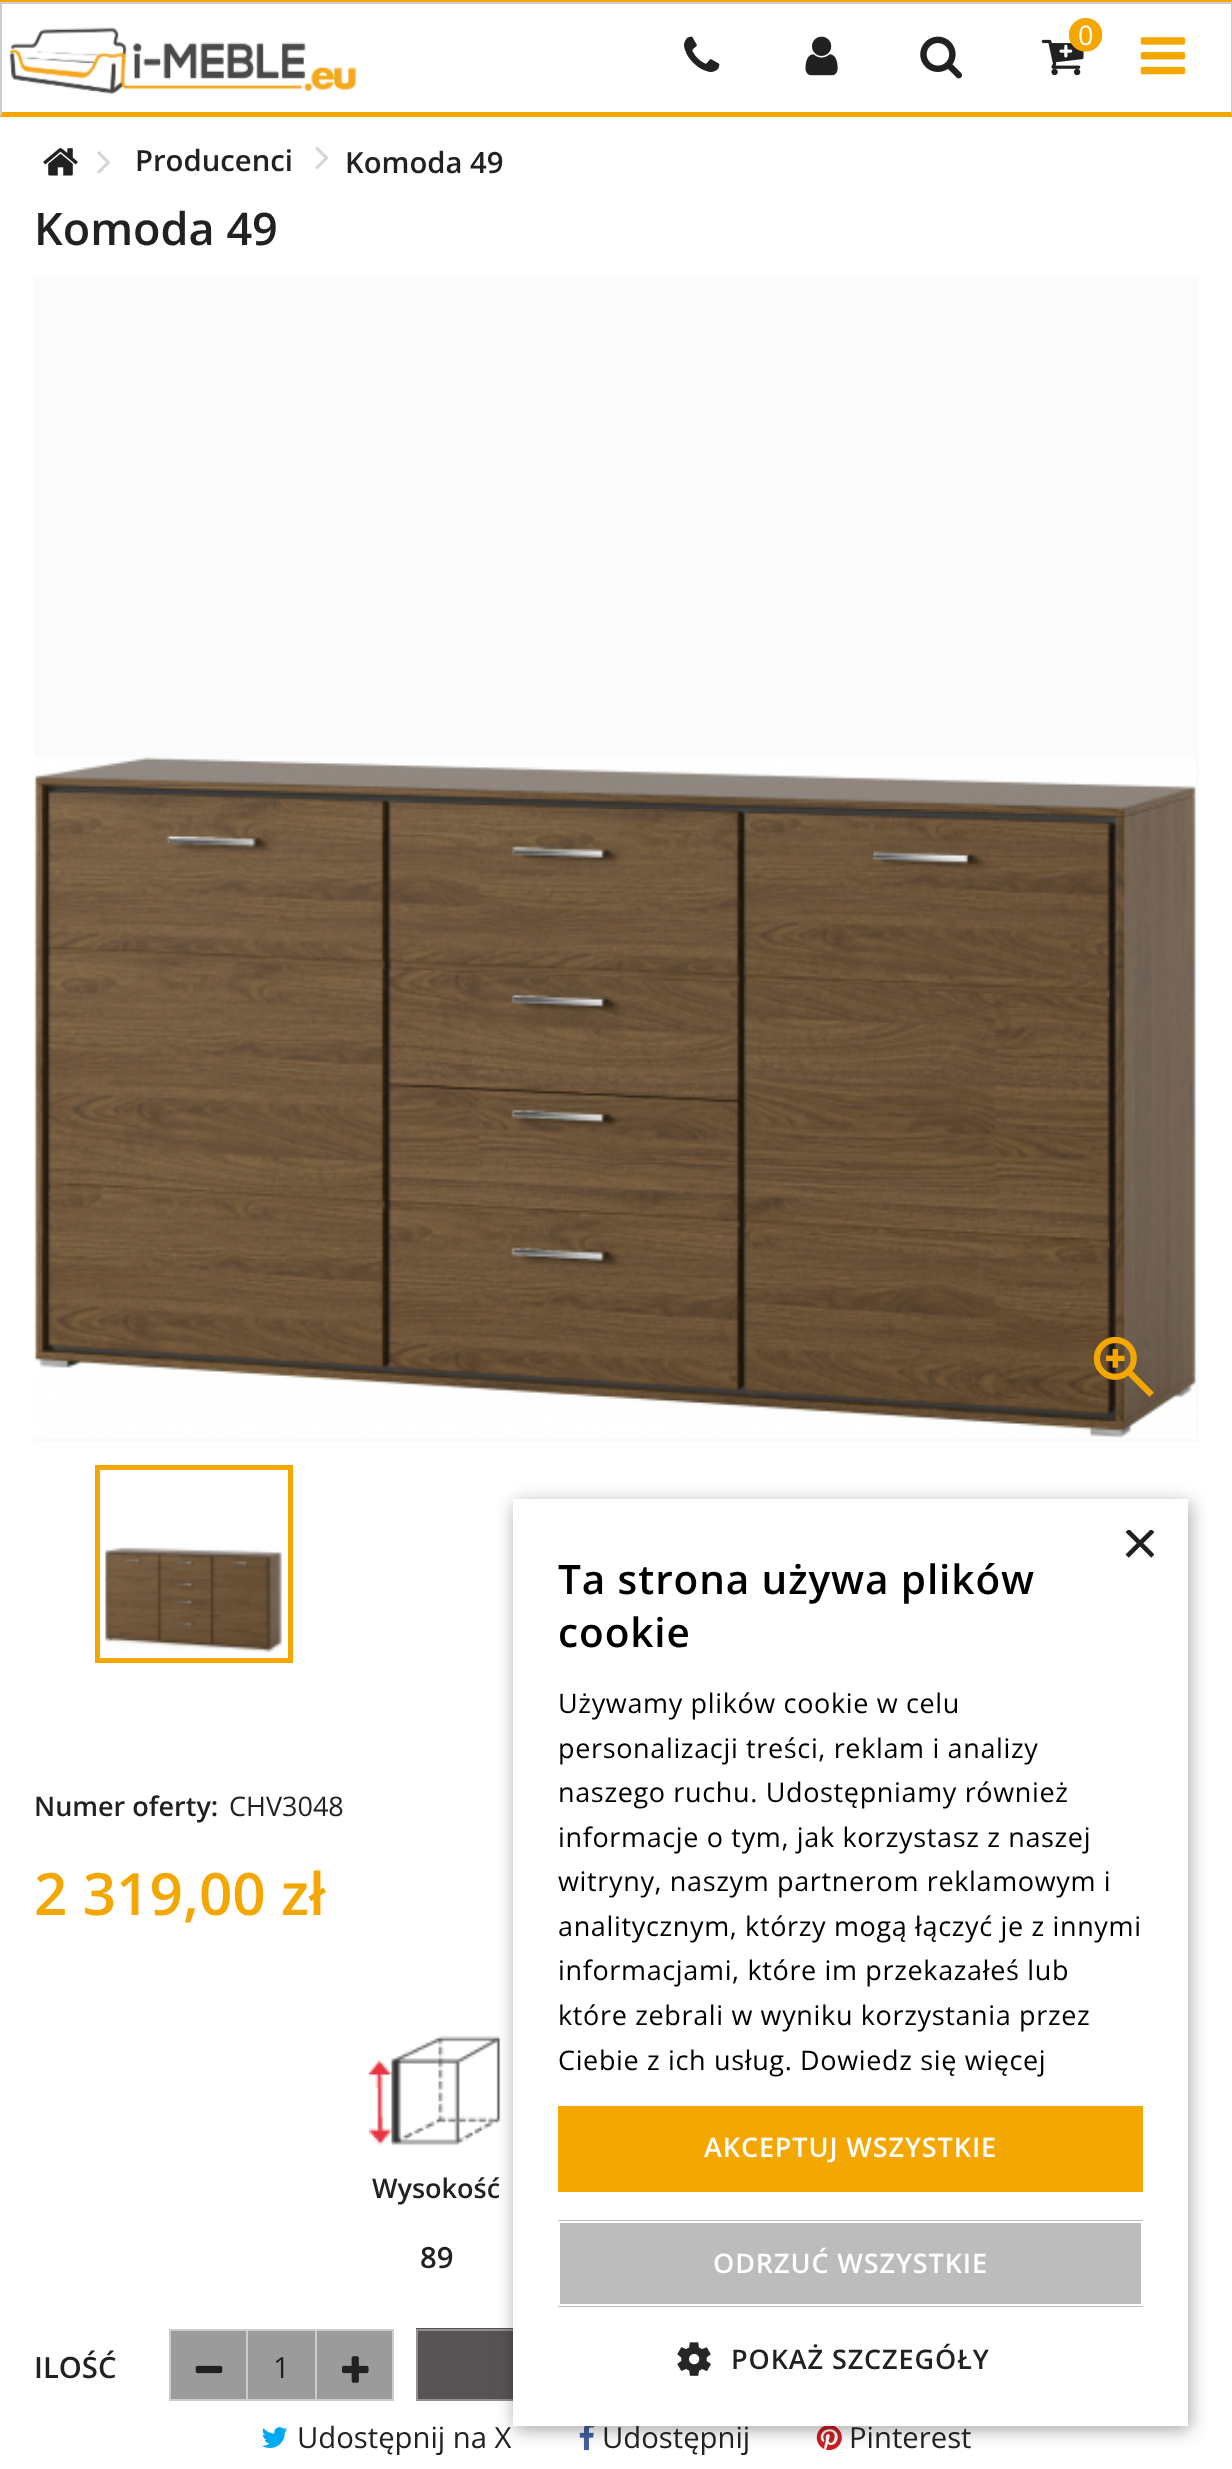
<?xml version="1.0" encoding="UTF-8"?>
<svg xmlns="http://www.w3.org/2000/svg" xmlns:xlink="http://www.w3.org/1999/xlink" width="1232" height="2469">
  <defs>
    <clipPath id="clip1"><rect x="1121" y="1530" width="33" height="34" /></clipPath>
  </defs>
  <rect width="100%" height="100%" fill="#ffffff" />
  <rect width="1232" height="2" fill="#f4a700" />
  <rect y="2" width="1232" height="2" fill="#cccccc" />
  <path d="M 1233 2 v 115 l -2 -5 v -108 z" fill="#cccccc" />
  <path d="M 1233 117 h -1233 l 2 -5 h 1229 z" fill="#f4a700" />
  <path d="M 0 117 v -115 l 2 2 v 108 z" fill="#cccccc" />
  <image x="9" y="27" width="348" height="67" xlink:href="image1.png" />
  <image x="684" y="36" width="36" height="36" xlink:href="image2.png" />
  <image x="805" y="36" width="33" height="40" xlink:href="image3.png" />
  <image x="920" y="36" width="42" height="43" xlink:href="image4.png" />
  <image x="1041" y="39" width="43" height="37" xlink:href="image6.png" />
  <image x="1069" y="18" width="34" height="34" xlink:href="image5.png" />
  <image x="1140" y="37" width="46" height="38" xlink:href="image7.png" />
  <image x="43" y="148" width="35" height="28" xlink:href="image8.png" />
  <image x="97" y="151" width="13" height="23" xlink:href="image9.png" />
  <image x="315" y="146" width="14" height="24" xlink:href="image10.png" />
  <rect x="34" y="277" width="1165" height="1165" fill="#fbfbfb" />
  <image x="34" y="757" width="1162" height="681" xlink:href="image11.png" />
  <image x="1093" y="1336" width="61" height="61" xlink:href="image12.png" />
  <rect x="97.5" y="1467.5" width="193" height="193" fill="none" stroke="#f4a700" stroke-width="5" />
  <image x="105" y="1547" width="178" height="106" xlink:href="image13.png" />
  <image x="369" y="2035" width="132" height="110" xlink:href="image14.png" />
  <rect x="170" y="2330" width="77" height="70" fill="#9b9b9b" stroke="#cccccc" stroke-width="2" />
  <image x="195" y="2365" width="28" height="9" xlink:href="image15.png" />
  <rect x="248" y="2331" width="67" height="68" fill="#9b9b9b" />
  <rect x="248" y="2329" width="67" height="2" fill="#cccccc" />
  <rect x="248" y="2399" width="67" height="2" fill="#cccccc" />
  <rect x="316" y="2330" width="77" height="70" fill="#9b9b9b" stroke="#cccccc" stroke-width="2" />
  <image x="342" y="2356" width="27" height="27" xlink:href="image16.png" />
  <rect x="416" y="2328" width="97" height="71" fill="#555354" />
  <rect x="417" y="2330" width="761" height="70" fill="none" stroke="#918f90" stroke-width="2" />
  <image x="262" y="2427" width="26" height="21" xlink:href="image17.png" />
  <image x="579" y="2426" width="15" height="25" xlink:href="image18.png" />
  <image x="816" y="2426" width="26" height="25" xlink:href="image19.png" />
  <rect x="515" y="1503" width="675" height="927" fill="#000000" fill-opacity="0.35" filter="blur(9px)" />
  <text x="1078" y="45" style="font-family: Open Sans; font-size: 27px; fill: #ffffff">0</text>
  <text x="135" y="171" style="font-family: Open Sans; font-size: 29.25px; font-weight: 600; fill: #212121">Producenci</text>
  <text x="345" y="173" style="font-family: Open Sans; font-size: 29.25px; font-weight: 600; fill: #212121">Komoda 49</text>
  <text x="34" y="245" style="font-family: Open Sans; font-size: 45px; font-weight: 600; fill: #212121">Komoda 49</text>
  <text x="34" y="1816" style="font-family: Open Sans; font-size: 27px; font-weight: 600; fill: #212121">Numer oferty:</text>
  <text x="229" y="1816" style="font-family: Open Sans; font-size: 27px; fill: #212121">CHV3048</text>
  <text x="34" y="1915" style="font-family: Open Sans; font-size: 58.5px; font-weight: 600; fill: #f4a700">2 319,00 zł</text>
  <text x="372" y="2198" style="font-family: Open Sans; font-size: 27px; font-weight: 600; fill: #212121">Wysokość</text>
  <text x="420" y="2268" style="font-family: Open Sans; font-size: 29.25px; font-weight: 600; fill: #212121">89</text>
  <text x="34" y="2378" style="font-family: Open Sans; font-size: 29.25px; font-weight: 600; fill: #212121">ILOŚĆ</text>
  <text x="273" y="2378" style="font-family: Open Sans; font-size: 29.25px; fill: #212121">1</text>
  <text x="297" y="2448" style="font-family: Open Sans; font-size: 29.25px; fill: #212121">Udostępnij na X</text>
  <text x="602" y="2448" style="font-family: Open Sans; font-size: 29.25px; fill: #212121">Udostępnij</text>
  <text x="849" y="2448" style="font-family: Open Sans; font-size: 29.25px; fill: #212121">Pinterest</text>
  <rect x="513" y="1499" width="675" height="927" fill="#ffffff" />
  <g clip-path="url(#clip1)">
    <text x="1121" y="1565" style="font-family: Liberation Sans; font-size: 65px; fill: #212121">×</text>
  </g>
  <text x="558" y="1594" style="font-family: Open Sans; font-size: 40.5px; font-weight: 600; letter-spacing: 0.9px; fill: #000000">Ta strona używa plików</text>
  <text x="558" y="1647" style="font-family: Open Sans; font-size: 40.5px; font-weight: 600; letter-spacing: 0.9px; fill: #000000">cookie</text>
  <text x="558" y="1713" style="font-family: Open Sans; font-size: 27px; letter-spacing: 0.65px; fill: #000000">Używamy plików cookie w celu</text>
  <text x="558" y="1758" style="font-family: Open Sans; font-size: 27px; letter-spacing: 0.65px; fill: #000000">personalizacji treści, reklam i analizy</text>
  <text x="558" y="1802" style="font-family: Open Sans; font-size: 27px; letter-spacing: 0.65px; fill: #000000">naszego ruchu. Udostępniamy również</text>
  <text x="558" y="1847" style="font-family: Open Sans; font-size: 27px; letter-spacing: 0.65px; fill: #000000">informacje o tym, jak korzystasz z naszej</text>
  <text x="558" y="1891" style="font-family: Open Sans; font-size: 27px; letter-spacing: 0.65px; fill: #000000">witryny, naszym partnerom reklamowym i</text>
  <text x="558" y="1936" style="font-family: Open Sans; font-size: 27px; letter-spacing: 0.65px; fill: #000000">analitycznym, którzy mogą łączyć je z innymi</text>
  <text x="558" y="1980" style="font-family: Open Sans; font-size: 27px; letter-spacing: 0.65px; fill: #000000">informacjami, które im przekazałeś lub</text>
  <text x="558" y="2025" style="font-family: Open Sans; font-size: 27px; letter-spacing: 0.65px; fill: #000000">które zebrali w wyniku korzystania przez</text>
  <text x="558" y="2070" style="font-family: Open Sans; font-size: 27px; letter-spacing: 0.65px; fill: #000000">Ciebie z ich usług. Dowiedz się więcej</text>
  <rect x="558" y="2106" width="585" height="86" fill="#f4a700" />
  <text x="704" y="2157" style="font-family: Open Sans; font-size: 27px; font-weight: 600; letter-spacing: 0.9px; fill: #ffffff">AKCEPTUJ WSZYSTKIE</text>
  <rect x="558" y="2220" width="585" height="87" fill="#bcbcbc" />
  <rect x="559" y="2222" width="583" height="83" fill="none" stroke="#ffffff" stroke-width="2" />
  <text x="713" y="2273" style="font-family: Open Sans; font-size: 27px; font-weight: 600; letter-spacing: 0.9px; fill: #ffffff">ODRZUĆ WSZYSTKIE</text>
  <image x="677" y="2342" width="34" height="34" xlink:href="image20.png" />
  <text x="731" y="2369" style="font-family: Open Sans; font-size: 27px; font-weight: 600; letter-spacing: 0.9px; fill: #212121">POKAŻ SZCZEGÓŁY</text>
</svg>
